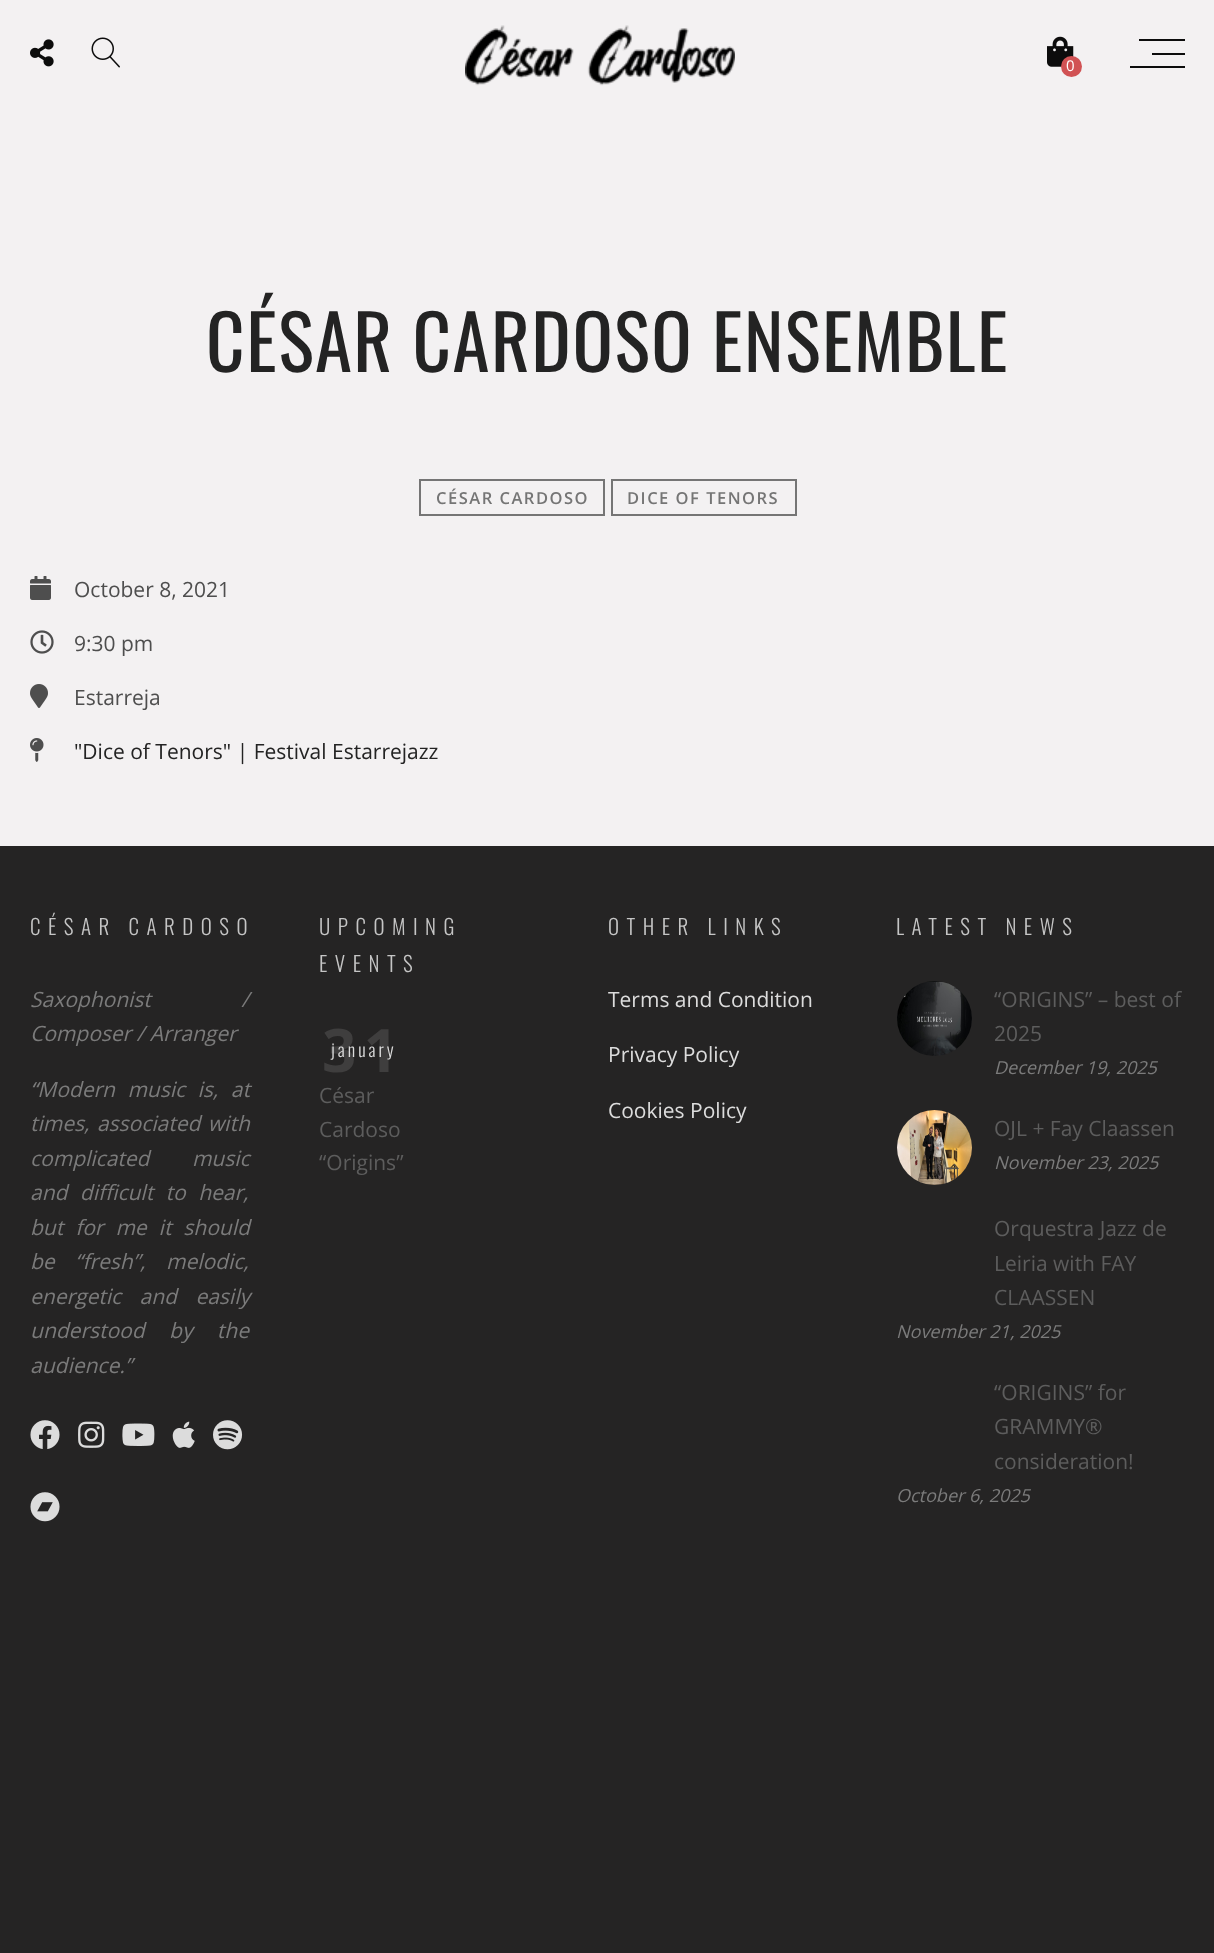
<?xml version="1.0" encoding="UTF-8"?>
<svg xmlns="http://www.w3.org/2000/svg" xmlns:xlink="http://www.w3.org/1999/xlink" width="1214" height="1953">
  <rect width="100%" height="100%" fill="#f3f1f2" />
  <image x="30" y="39" width="24" height="28" xlink:href="image1.png" />
  <image x="91" y="37" width="29" height="31" xlink:href="image2.png" />
  <image x="465" y="25" width="270" height="61" xlink:href="image3.png" />
  <image x="1047" y="36" width="27" height="31" xlink:href="image4.png" />
  <circle cx="1071.5" cy="66.5" r="10.5" fill="#d15254" />
  <rect x="1139" y="39" width="46" height="2" fill="#0c0c0c" />
  <rect x="1152" y="53" width="33" height="2" fill="#0c0c0c" />
  <rect x="1130" y="66" width="55" height="2" fill="#0c0c0c" />
  <rect x="420" y="480" width="184" height="35" fill="none" stroke="#757575" stroke-width="2" />
  <rect x="612" y="480" width="184" height="35" fill="none" stroke="#757575" stroke-width="2" />
  <image x="30" y="576" width="21" height="24" xlink:href="image5.png" />
  <image x="30" y="630" width="24" height="24" xlink:href="image6.png" />
  <image x="30" y="684" width="18" height="24" xlink:href="image7.png" />
  <image x="30" y="738" width="14" height="24" xlink:href="image8.png" />
  <rect y="846" width="1214" height="1107" fill="#252424" />
  <image x="30" y="1420" width="30" height="29" xlink:href="image9.png" />
  <image x="78" y="1421" width="27" height="27" xlink:href="image10.png" />
  <image x="122" y="1423" width="33" height="23" xlink:href="image11.png" />
  <image x="172" y="1421" width="23" height="27" xlink:href="image12.png" />
  <image x="213" y="1420" width="30" height="30" xlink:href="image13.png" />
  <image x="30" y="1492" width="30" height="30" xlink:href="image14.png" />
  <image x="897" y="981" width="75" height="75" xlink:href="image15.png" />
  <image x="897" y="1110" width="75" height="75" xlink:href="image16.png" />
  <text x="1066" y="71" style="font-family: Open Sans; font-size: 15px; fill: #ffffff">0</text>
  <text x="206" y="372" style="font-family: Oswald; font-size: 75px; letter-spacing: 1.5px; fill: #232323">CÉSAR CARDOSO ENSEMBLE</text>
  <text x="436" y="504" style="font-family: Open Sans; font-size: 16.5px; font-weight: 600; letter-spacing: 1.5px; fill: #757575">CÉSAR CARDOSO</text>
  <text x="627" y="504" style="font-family: Open Sans; font-size: 16.5px; font-weight: 600; letter-spacing: 1.5px; fill: #757575">DICE OF TENORS</text>
  <text x="74" y="597" style="font-family: Open Sans; font-size: 21px; fill: #4e4e4e">October 8, 2021</text>
  <text x="74" y="651" style="font-family: Open Sans; font-size: 21px; fill: #4e4e4e">9:30 pm</text>
  <text x="74" y="705" style="font-family: Open Sans; font-size: 21px; fill: #4e4e4e">Estarreja</text>
  <text x="74" y="759" style="font-family: Open Sans; font-size: 21px; fill: #232323">"Dice of Tenors" | Festival Estarrejazz</text>
  <text x="30" y="935" style="font-family: Oswald; font-size: 21px; font-weight: 300; letter-spacing: 7.5px; fill: #c5c5c5">CÉSAR CARDOSO</text>
  <text x="30" y="1007" word-spacing="85" style="font-family: Open Sans; font-size: 21px; font-style: italic; fill: #7b7b7b">Saxophonist /</text>
  <text x="30" y="1041" style="font-family: Open Sans; font-size: 21px; font-style: italic; fill: #7b7b7b">Composer / Arranger</text>
  <text x="30" y="1097" word-spacing="7" style="font-family: Open Sans; font-size: 21px; font-style: italic; fill: #7b7b7b">“Modern music is, at</text>
  <text x="30" y="1131" word-spacing="2" style="font-family: Open Sans; font-size: 21px; font-style: italic; fill: #7b7b7b">times, associated with</text>
  <text x="30" y="1166" word-spacing="37" style="font-family: Open Sans; font-size: 21px; font-style: italic; fill: #7b7b7b">complicated music</text>
  <text x="30" y="1200" word-spacing="7" style="font-family: Open Sans; font-size: 21px; font-style: italic; fill: #7b7b7b">and difficult to hear,</text>
  <text x="30" y="1235" word-spacing="6.5" style="font-family: Open Sans; font-size: 21px; font-style: italic; fill: #7b7b7b">but for me it should</text>
  <text x="30" y="1269" word-spacing="15" style="font-family: Open Sans; font-size: 21px; font-style: italic; fill: #7b7b7b">be “fresh”, melodic,</text>
  <text x="30" y="1304" word-spacing="13" style="font-family: Open Sans; font-size: 21px; font-style: italic; fill: #7b7b7b">energetic and easily</text>
  <text x="30" y="1338" word-spacing="19" style="font-family: Open Sans; font-size: 21px; font-style: italic; fill: #7b7b7b">understood by the</text>
  <text x="30" y="1373" style="font-family: Open Sans; font-size: 21px; font-style: italic; fill: #7b7b7b">audience.”</text>
  <text x="319" y="935" style="font-family: Oswald; font-size: 21px; font-weight: 300; letter-spacing: 7.5px; fill: #c5c5c5">UPCOMING</text>
  <text x="319" y="972" style="font-family: Oswald; font-size: 21px; font-weight: 300; letter-spacing: 7.5px; fill: #c5c5c5">EVENTS</text>
  <text x="322" y="1072" style="font-family: Open Sans; font-size: 60px; font-weight: bold; letter-spacing: 7.5px; fill: #3f3e3e">31</text>
  <text x="331" y="1057" style="font-family: Oswald; font-size: 18px; font-weight: 300; letter-spacing: 3px; fill: #dcdcdc">january</text>
  <text x="319" y="1103" style="font-family: Open Sans; font-size: 21px; fill: #5d5d5d">César</text>
  <text x="319" y="1137" style="font-family: Open Sans; font-size: 21px; fill: #5d5d5d">Cardoso</text>
  <text x="319" y="1170" style="font-family: Open Sans; font-size: 21px; fill: #5d5d5d">“Origins”</text>
  <text x="608" y="935" style="font-family: Oswald; font-size: 21px; font-weight: 300; letter-spacing: 7.5px; fill: #c5c5c5">OTHER LINKS</text>
  <text x="608" y="1007" style="font-family: Open Sans; font-size: 21px; fill: #dcdcdc">Terms and Condition</text>
  <text x="608" y="1062" style="font-family: Open Sans; font-size: 21px; fill: #dcdcdc">Privacy Policy</text>
  <text x="608" y="1118" style="font-family: Open Sans; font-size: 21px; fill: #dcdcdc">Cookies Policy</text>
  <text x="896" y="935" style="font-family: Oswald; font-size: 21px; font-weight: 300; letter-spacing: 7.5px; fill: #c5c5c5">LATEST NEWS</text>
  <text x="994" y="1007" style="font-family: Open Sans; font-size: 21px; fill: #5d5d5d">“ORIGINS” – best of</text>
  <text x="994" y="1041" style="font-family: Open Sans; font-size: 21px; fill: #5d5d5d">2025</text>
  <text x="994" y="1074" style="font-family: Open Sans; font-size: 18px; font-style: italic; fill: #7b7b7b">December 19, 2025</text>
  <text x="994" y="1136" style="font-family: Open Sans; font-size: 21px; fill: #5d5d5d">OJL + Fay Claassen</text>
  <text x="994" y="1169" style="font-family: Open Sans; font-size: 18px; font-style: italic; fill: #7b7b7b">November 23, 2025</text>
  <text x="994" y="1236" style="font-family: Open Sans; font-size: 21px; fill: #5d5d5d">Orquestra Jazz de</text>
  <text x="994" y="1271" style="font-family: Open Sans; font-size: 21px; fill: #5d5d5d">Leiria with FAY</text>
  <text x="994" y="1305" style="font-family: Open Sans; font-size: 21px; fill: #5d5d5d">CLAASSEN</text>
  <text x="896" y="1338" style="font-family: Open Sans; font-size: 18px; font-style: italic; fill: #7b7b7b">November 21, 2025</text>
  <text x="994" y="1400" style="font-family: Open Sans; font-size: 21px; fill: #5d5d5d">“ORIGINS” for</text>
  <text x="994" y="1434" style="font-family: Open Sans; font-size: 21px; fill: #5d5d5d">GRAMMY®</text>
  <text x="994" y="1469" style="font-family: Open Sans; font-size: 21px; fill: #5d5d5d">consideration!</text>
  <text x="896" y="1502" style="font-family: Open Sans; font-size: 18px; font-style: italic; fill: #7b7b7b">October 6, 2025</text>
</svg>
